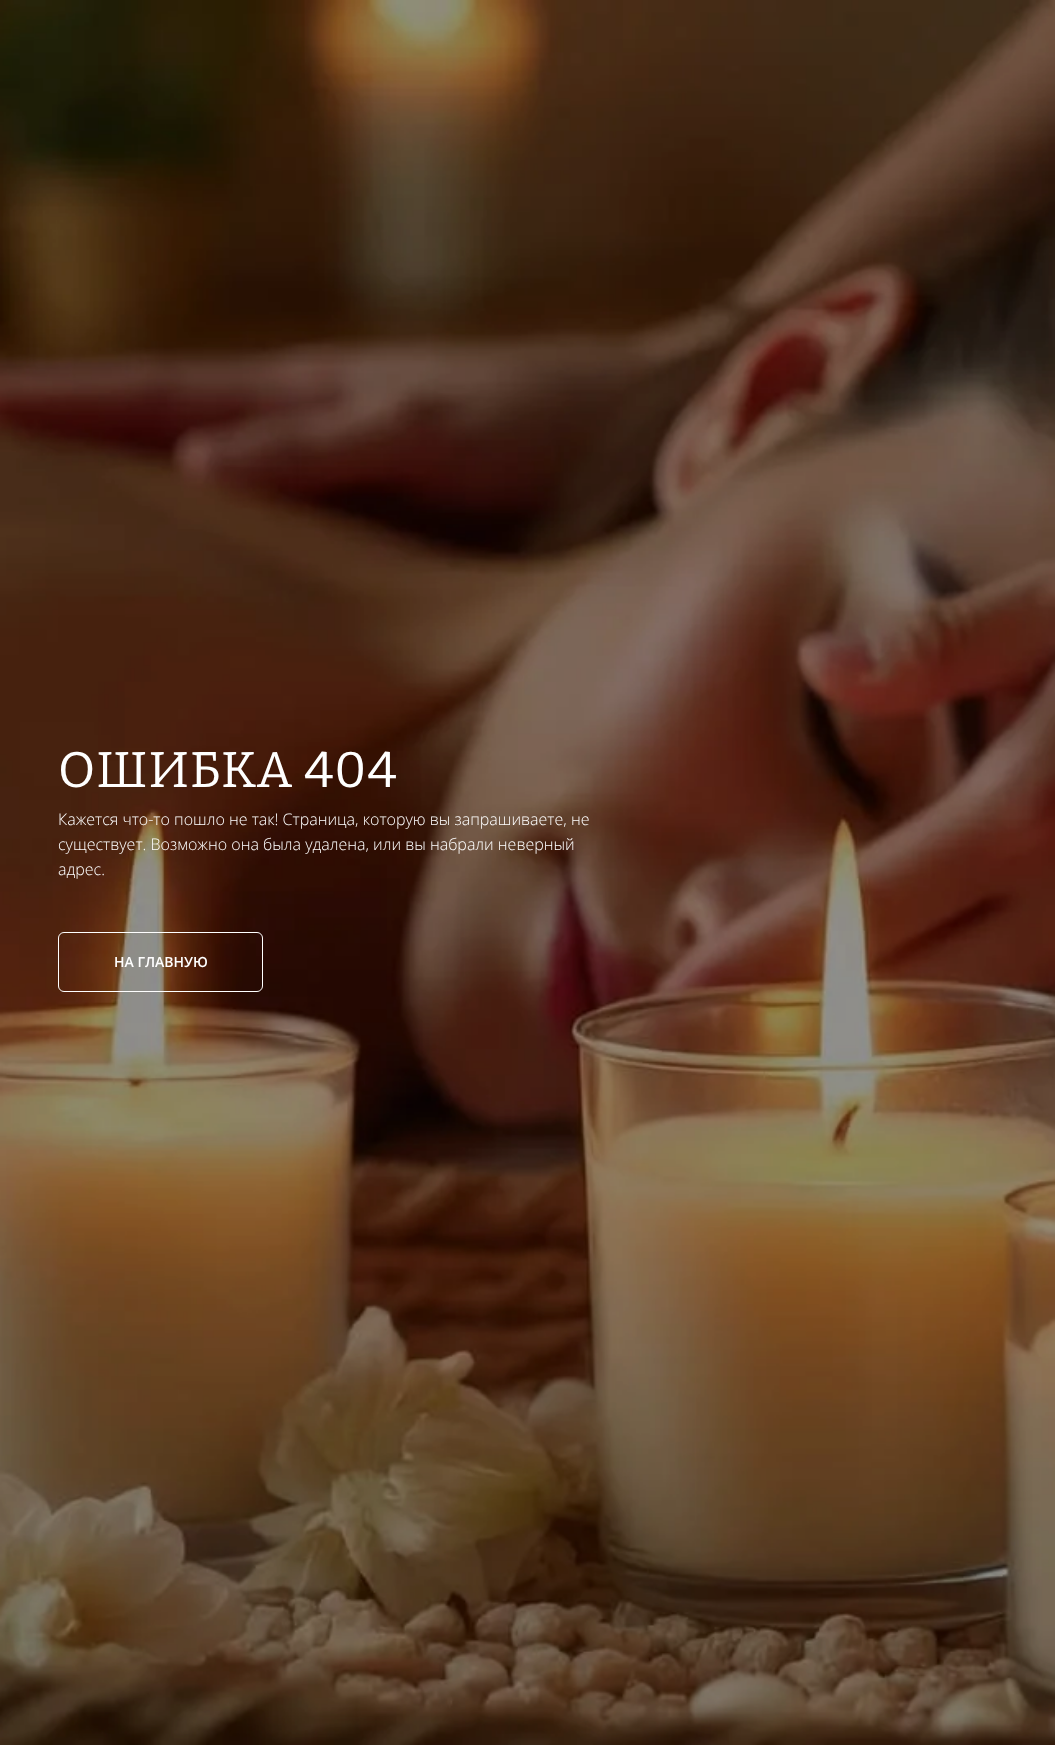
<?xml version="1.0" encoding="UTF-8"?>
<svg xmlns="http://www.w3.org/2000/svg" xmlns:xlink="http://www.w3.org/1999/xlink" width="1055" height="1745">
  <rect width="100%" height="100%" fill="#ffffff" />
  <image x="0" y="0" width="1055" height="1745" xlink:href="image1.png" />
  <rect x="58.5" y="932.5" width="204" height="59" rx="5.5" fill="none" stroke="#ffffff" />
  <text x="58" y="787" style="font-family: Bitter; font-size: 50px; letter-spacing: 1px; fill: #ffffff">ОШИБКА 404</text>
  <text x="58" y="825" style="font-family: Open Sans; font-size: 16px; font-weight: 300; fill: #ffffff">Кажется что-то пошло не так! Страница, которую вы запрашиваете, не</text>
  <text x="58" y="850" style="font-family: Open Sans; font-size: 16px; font-weight: 300; fill: #ffffff">существует. Возможно она была удалена, или вы набрали неверный</text>
  <text x="58" y="875" style="font-family: Open Sans; font-size: 16px; font-weight: 300; fill: #ffffff">адрес.</text>
  <text x="114" y="967" style="font-family: Open Sans; font-size: 14px; font-weight: 600; fill: #ffffff">НА ГЛАВНУЮ</text>
</svg>
